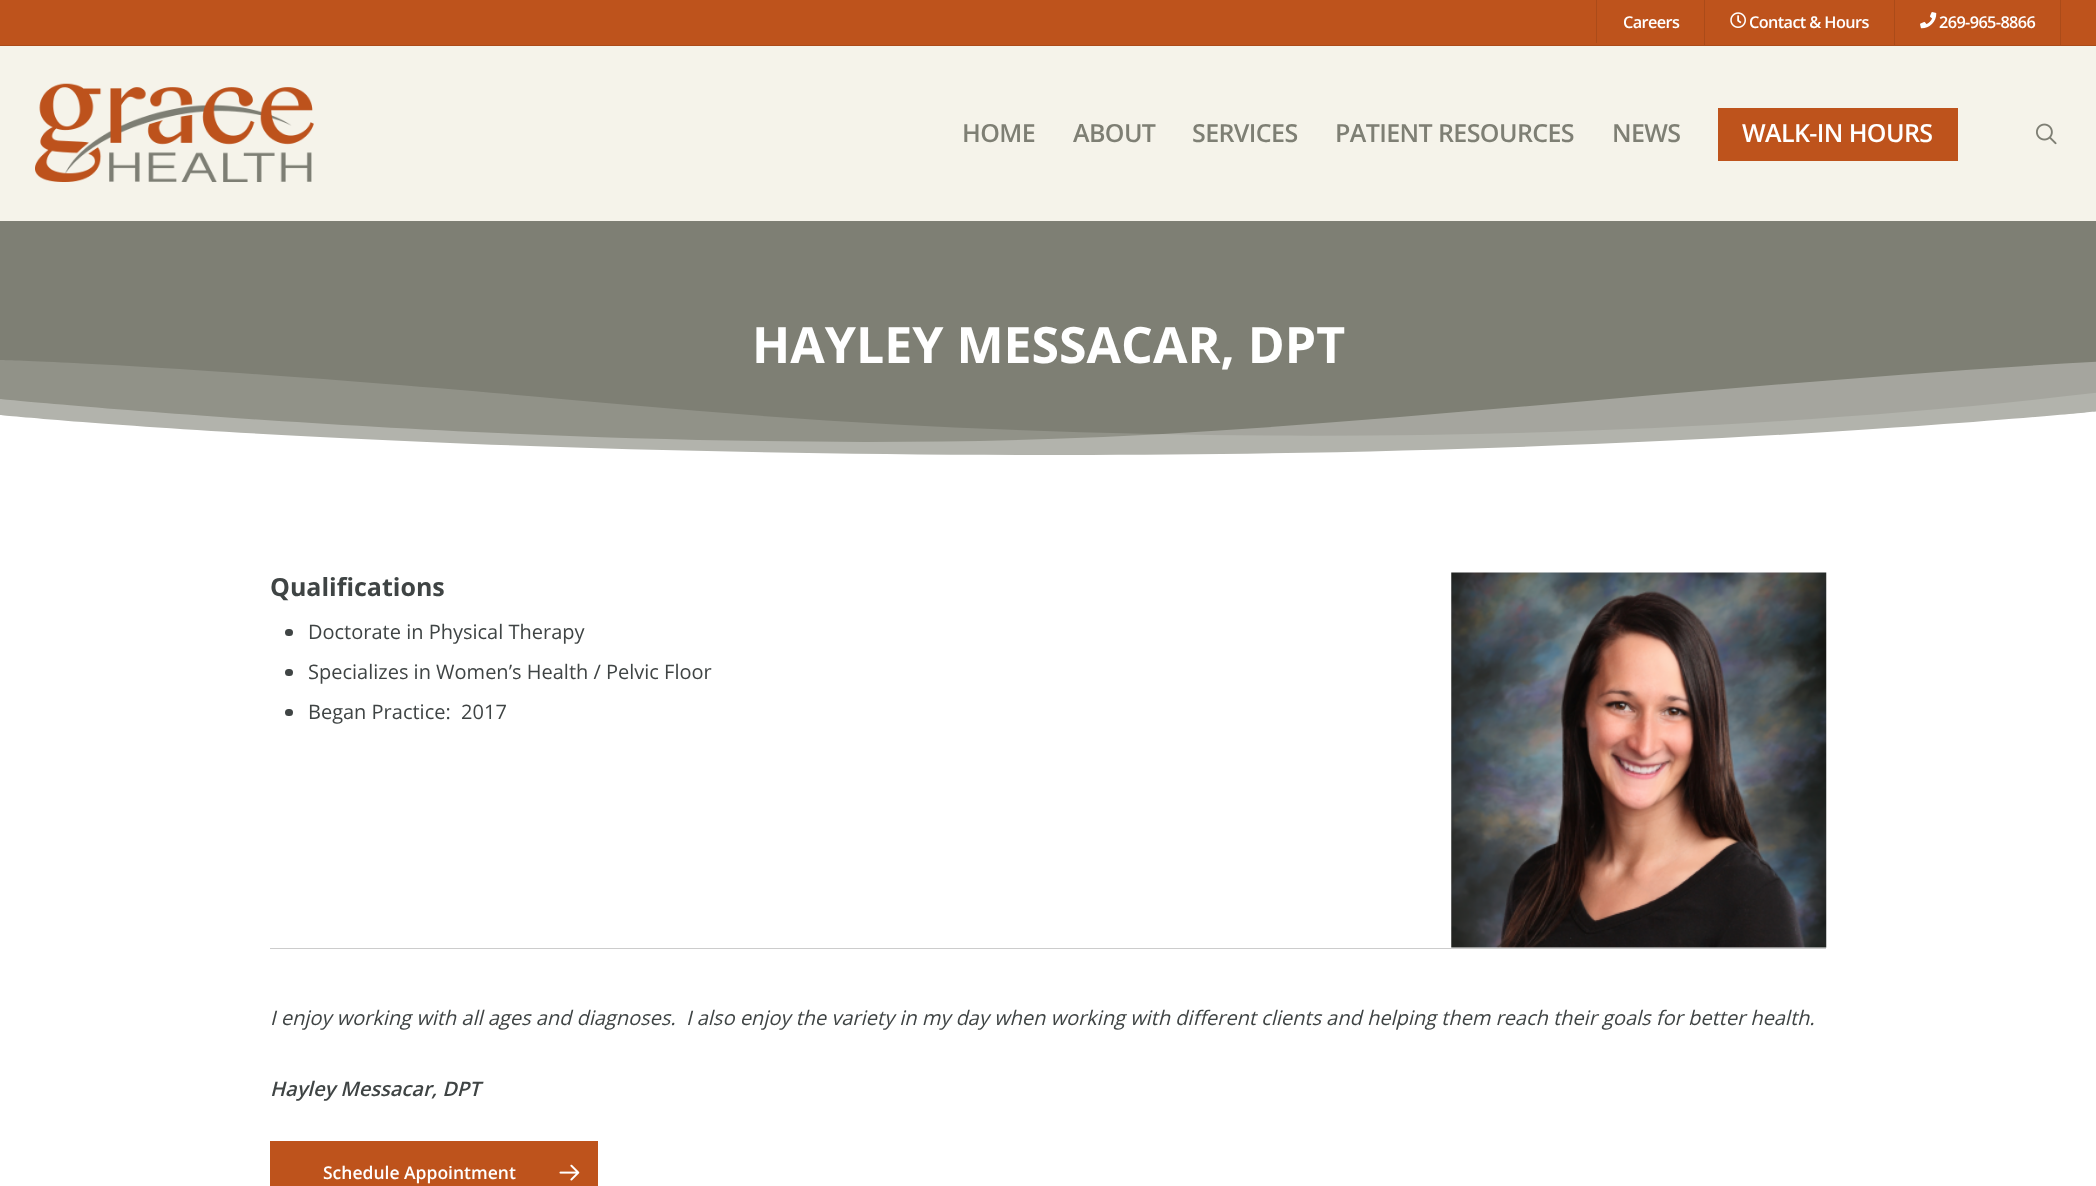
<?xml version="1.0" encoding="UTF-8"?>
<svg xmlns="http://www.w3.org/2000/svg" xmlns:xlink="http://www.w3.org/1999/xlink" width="2096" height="1186">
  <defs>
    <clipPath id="clip1"><rect y="343" width="2096" height="125" /></clipPath>
  </defs>
  <rect width="100%" height="100%" fill="#ffffff" />
  <rect width="2096" height="45" fill="#be531c" />
  <rect y="45" width="2096" height="1" fill="#ab4b19" />
  <rect x="1596" width="1" height="43" fill="#ab4b19" />
  <rect x="1704" width="1" height="45" fill="#ab4b19" />
  <image x="1730" y="12" width="16" height="16" xlink:href="image1.png" />
  <rect x="2060" width="1" height="45" fill="#ab4b19" />
  <rect x="1894" width="1" height="45" fill="#ab4b19" />
  <image x="1920" y="12" width="17" height="17" xlink:href="image2.png" />
  <rect y="46" width="2096" height="175" fill="#f5f3ea" />
  <image x="35" y="83" width="279" height="99" xlink:href="image3.png" />
  <rect x="1718" y="108" width="240" height="53" fill="#be531c" />
  <image x="2036" y="123" width="21" height="22" xlink:href="image4.png" />
  <rect y="221" width="2096" height="234" fill="#7e7f74" />
  <image x="1451" y="572" width="376" height="376" xlink:href="image5.png" />
  <rect x="285" y="629" width="8" height="7" rx="3.5" fill="#3f4444" />
  <rect x="285" y="669" width="8" height="7" rx="3.5" fill="#3f4444" />
  <rect x="285" y="709" width="8" height="7" rx="3.5" fill="#3f4444" />
  <rect x="270" y="948" width="1556" height="1" fill="#cccccc" />
  <rect x="270" y="1141" width="328" height="45" fill="#be531c" />
  <image x="559" y="1164" width="21" height="17" xlink:href="image6.png" />
  <text x="1623" y="28" style="font-family: Open Sans; font-size: 16.25px; font-weight: 600; letter-spacing: -0.6px; fill: #ffffff">Careers</text>
  <text x="1749" y="28" style="font-family: Open Sans; font-size: 16.25px; font-weight: 600; letter-spacing: -0.6px; fill: #ffffff">Contact &amp; Hours</text>
  <text x="1939" y="28" style="font-family: Open Sans; font-size: 16.25px; font-weight: 600; letter-spacing: -0.6px; fill: #ffffff">269-965-8866</text>
  <text x="962" y="142" style="font-family: Open Sans; font-size: 25px; font-weight: 600; letter-spacing: -0.6px; fill: #7e7f74">HOME</text>
  <text x="1073" y="142" style="font-family: Open Sans; font-size: 25px; font-weight: 600; letter-spacing: -0.6px; fill: #7e7f74">ABOUT</text>
  <text x="1192" y="142" style="font-family: Open Sans; font-size: 25px; font-weight: 600; letter-spacing: -0.6px; fill: #7e7f74">SERVICES</text>
  <text x="1335" y="142" style="font-family: Open Sans; font-size: 25px; font-weight: 600; letter-spacing: -0.6px; fill: #7e7f74">PATIENT RESOURCES</text>
  <text x="1612" y="142" style="font-family: Open Sans; font-size: 25px; font-weight: 600; letter-spacing: -0.6px; fill: #7e7f74">NEWS</text>
  <text x="1742" y="142" style="font-family: Open Sans; font-size: 25px; font-weight: 600; letter-spacing: -0.6px; fill: #ffffff">WALK-IN HOURS</text>
  <text x="752" y="363" style="font-family: Open Sans; font-size: 50px; font-weight: bold; fill: #ffffff">HAYLEY MESSACAR, DPT</text>
  <g clip-path="url(#clip1)">
    <path d="M 0 360 c 0 0 186 4 629 45 c 545 50 1077 34 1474 -13 l 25 36 l 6 44 h -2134 z" fill="#ffffff" fill-opacity="0.15" />
  </g>
  <path d="M 0 399 c 0 0 568 56 1048 40 c 329 -11 692 -59 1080 -79 v 108 h -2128 z" fill="#ffffff" fill-opacity="0.3" />
  <path d="M 0 415 c 0 0 395 40 1065 40 c 608 0 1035 -44 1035 -44 v 57 h -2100 z" fill="#ffffff" />
  <text x="270" y="596" style="font-family: Open Sans; font-size: 25px; font-weight: bold; fill: #3f4444">Qualifications</text>
  <text x="308" y="639" style="font-family: Open Sans; font-size: 20px; fill: #3f4444">Doctorate in Physical Therapy</text>
  <text x="308" y="679" style="font-family: Open Sans; font-size: 20px; fill: #3f4444">Specializes in Women’s Health / Pelvic Floor</text>
  <text x="308" y="719" style="font-family: Open Sans; font-size: 20px; fill: #3f4444" xml:space="preserve">Began Practice:  2017</text>
  <text x="270" y="1025" style="font-family: Open Sans; font-size: 20px; font-style: italic; fill: #3f4444" xml:space="preserve">I enjoy working with all ages and diagnoses.  I also enjoy the variety in my day when working with different clients and helping them reach their goals for better health.</text>
  <text x="270" y="1096" style="font-family: Open Sans; font-size: 20px; font-weight: 600; font-style: italic; fill: #3f4444">Hayley Messacar, DPT</text>
  <text x="323" y="1179" style="font-family: Open Sans; font-size: 17.5px; font-weight: 600; fill: #ffffff">Schedule Appointment</text>
</svg>
